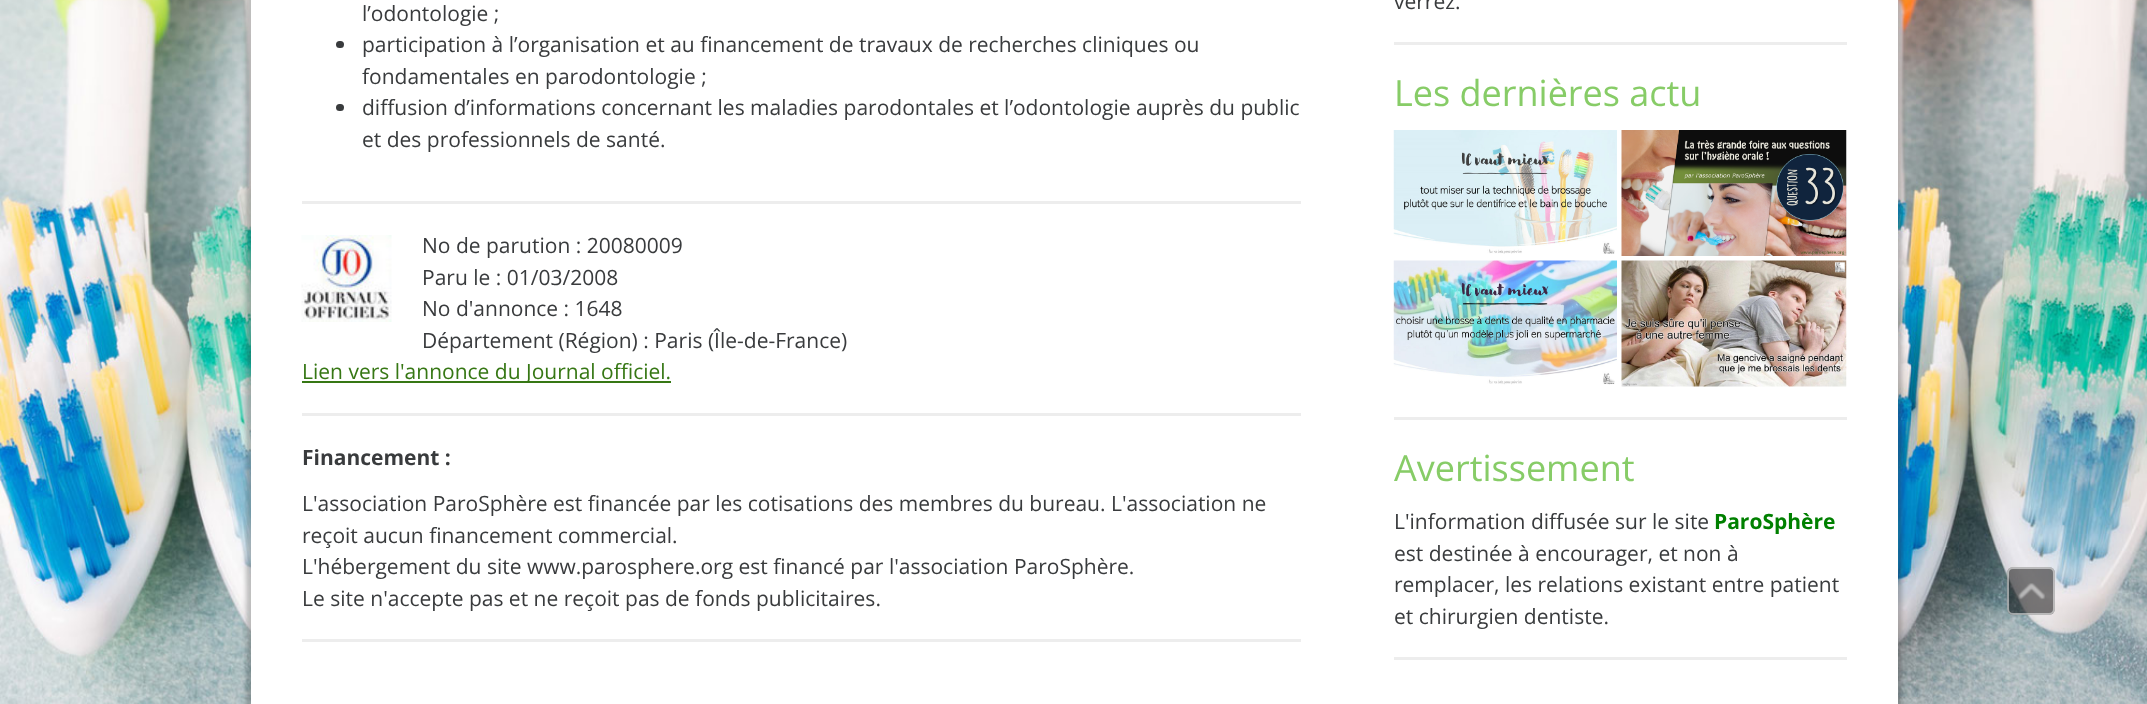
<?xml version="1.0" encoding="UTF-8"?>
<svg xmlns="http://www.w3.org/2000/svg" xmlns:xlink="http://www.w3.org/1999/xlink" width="2147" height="704">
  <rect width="100%" height="100%" fill="#ffffff" />
  <image x="0" y="0" width="2147" height="704" xlink:href="image1.png" />
  <rect x="246" y="-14" width="1656" height="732" rx="8" fill="#393b3d" fill-opacity="0.3" filter="blur(2px)" />
  <rect x="251" width="1647" height="704" fill="#ffffff" />
  <rect x="336" y="41" width="8" height="7" rx="3.5" fill="#393b3d" />
  <rect x="336" y="104" width="8" height="7" rx="3.5" fill="#393b3d" />
  <rect x="302" y="201" width="999" height="3" fill="#ededed" />
  <image x="301" y="235" width="91" height="87" xlink:href="image2.png" />
  <rect x="302" y="381" width="369" height="2" fill="#367714" />
  <rect x="302" y="413" width="999" height="3" fill="#ededed" />
  <rect x="302" y="639" width="999" height="3" fill="#ededed" />
  <rect x="1394" y="42" width="453" height="3" fill="#ededed" />
  <image x="1393" y="130" width="224" height="124" xlink:href="image3.png" />
  <image x="1621" y="130" width="226" height="126" xlink:href="image4.png" />
  <image x="1393" y="260" width="224" height="125" xlink:href="image5.png" />
  <image x="1621" y="260" width="226" height="127" xlink:href="image6.png" />
  <rect x="1394" y="417" width="453" height="3" fill="#ededed" />
  <rect x="1394" y="657" width="453" height="3" fill="#ededed" />
  <rect x="2007" y="567" width="48" height="48" rx="6" fill="#000000" fill-opacity="0.5" />
  <rect x="2008" y="568" width="46" height="46" rx="5" fill="none" stroke="#ffffff" stroke-opacity="0.5" stroke-width="2" />
  <image x="2018" y="583" width="27" height="17" xlink:href="image7.png" />
  <text x="362" y="21" style="font-family: Open Sans; font-size: 21px; fill: #393b3d">l’odontologie ;</text>
  <text x="362" y="52" style="font-family: Open Sans; font-size: 21px; fill: #393b3d">participation à l’organisation et au financement de travaux de recherches cliniques ou</text>
  <text x="362" y="84" style="font-family: Open Sans; font-size: 21px; fill: #393b3d">fondamentales en parodontologie ;</text>
  <text x="362" y="115" style="font-family: Open Sans; font-size: 21px; fill: #393b3d">diffusion d’informations concernant les maladies parodontales et l’odontologie auprès du public</text>
  <text x="362" y="147" style="font-family: Open Sans; font-size: 21px; fill: #393b3d">et des professionnels de santé.</text>
  <text x="422" y="253" style="font-family: Open Sans; font-size: 21px; fill: #393b3d">No de parution : 20080009</text>
  <text x="422" y="285" style="font-family: Open Sans; font-size: 21px; fill: #393b3d">Paru le : 01/03/2008</text>
  <text x="422" y="316" style="font-family: Open Sans; font-size: 21px; fill: #393b3d">No d'annonce : 1648</text>
  <text x="422" y="348" style="font-family: Open Sans; font-size: 21px; fill: #393b3d">Département (Région) : Paris (Île-de-France)</text>
  <text x="302" y="379" style="font-family: Open Sans; font-size: 21px; fill: #367714">Lien vers l'annonce du Journal officiel.</text>
  <text x="302" y="465" style="font-family: Open Sans; font-size: 21px; font-weight: bold; fill: #393b3d">Financement :</text>
  <text x="302" y="511" style="font-family: Open Sans; font-size: 21px; fill: #393b3d">L'association ParoSphère est financée par les cotisations des membres du bureau. L'association ne</text>
  <text x="302" y="543" style="font-family: Open Sans; font-size: 21px; fill: #393b3d">reçoit aucun financement commercial.</text>
  <text x="302" y="574" style="font-family: Open Sans; font-size: 21px; fill: #393b3d">L'hébergement du site www.parosphere.org est financé par l'association ParoSphère.</text>
  <text x="302" y="606" style="font-family: Open Sans; font-size: 21px; fill: #393b3d">Le site n'accepte pas et ne reçoit pas de fonds publicitaires.</text>
  <text x="1394" y="9" style="font-family: Open Sans; font-size: 21px; fill: #393b3d">verrez.</text>
  <text x="1394" y="106" style="font-family: Open Sans; font-size: 36px; fill: #87cc67">Les dernières actu</text>
  <text x="1394" y="481" style="font-family: Open Sans; font-size: 36px; fill: #87cc67">Avertissement</text>
  <text x="1394" y="529" style="font-family: Open Sans; font-size: 21px; fill: #393b3d">L'information diffusée sur le site</text>
  <text x="1714" y="529" style="font-family: Open Sans; font-size: 21px; font-weight: bold; fill: #008000">ParoSphère</text>
  <text x="1394" y="561" style="font-family: Open Sans; font-size: 21px; fill: #393b3d">est destinée à encourager, et non à</text>
  <text x="1394" y="592" style="font-family: Open Sans; font-size: 21px; fill: #393b3d">remplacer, les relations existant entre patient</text>
  <text x="1394" y="624" style="font-family: Open Sans; font-size: 21px; fill: #393b3d">et chirurgien dentiste.</text>
</svg>
